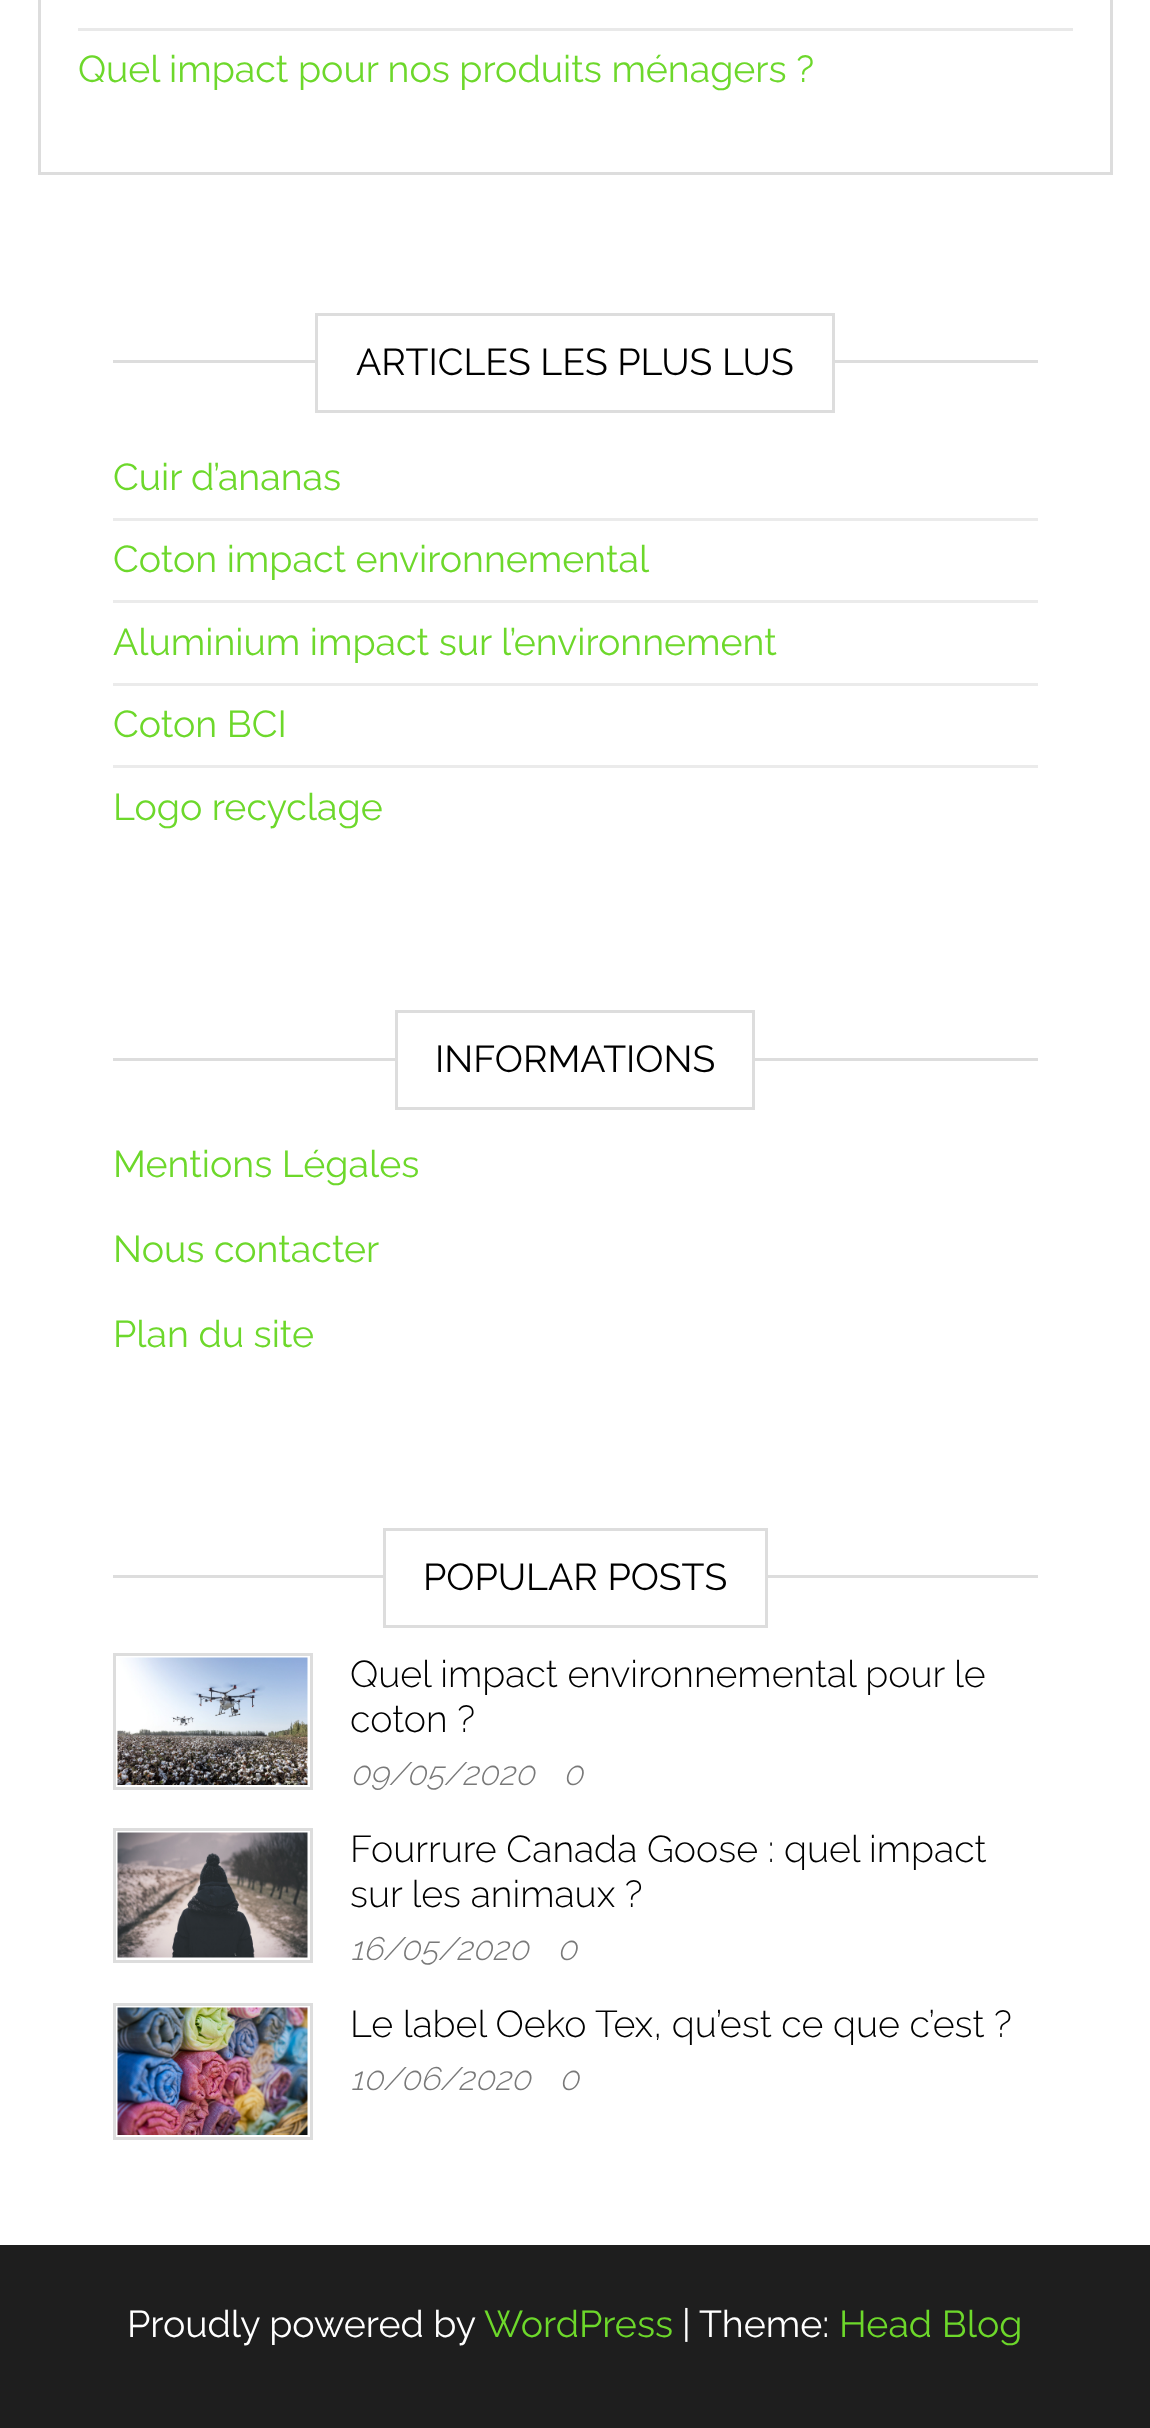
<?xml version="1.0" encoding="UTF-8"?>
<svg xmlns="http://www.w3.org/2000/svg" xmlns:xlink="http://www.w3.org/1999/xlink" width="1150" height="2428">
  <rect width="100%" height="100%" fill="#ffffff" />
  <rect x="39.5" y="-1.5" width="1072" height="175" fill="none" stroke="#dddddd" stroke-width="3" />
  <rect x="78" y="28" width="995" height="3" fill="#e9e9e9" />
  <rect x="113" y="360" width="925" height="3" fill="#dddddd" />
  <rect x="318" y="360" width="514" height="3" fill="#ffffff" />
  <rect x="316.5" y="314.5" width="517" height="97" fill="none" stroke="#dddddd" stroke-width="3" />
  <rect x="113" y="518" width="925" height="3" fill="#ebebeb" />
  <rect x="113" y="600" width="925" height="3" fill="#ebebeb" />
  <rect x="113" y="683" width="925" height="3" fill="#ebebeb" />
  <rect x="113" y="765" width="925" height="3" fill="#ebebeb" />
  <rect x="113" y="1058" width="925" height="3" fill="#dddddd" />
  <rect x="398" y="1058" width="354" height="3" fill="#ffffff" />
  <rect x="396.5" y="1011.5" width="357" height="97" fill="none" stroke="#dddddd" stroke-width="3" />
  <rect x="113" y="1575" width="925" height="3" fill="#dddddd" />
  <rect x="386" y="1575" width="379" height="3" fill="#ffffff" />
  <rect x="384.5" y="1529.5" width="382" height="97" fill="none" stroke="#dddddd" stroke-width="3" />
  <rect x="114.5" y="1654.5" width="197" height="134" fill="none" stroke="#dddddd" stroke-width="3" />
  <image x="117" y="1657" width="191" height="128" xlink:href="image1.png" />
  <rect x="114.5" y="1829.5" width="197" height="132" fill="none" stroke="#dddddd" stroke-width="3" />
  <image x="117" y="1832" width="191" height="126" xlink:href="image2.png" />
  <rect x="114.5" y="2004.5" width="197" height="134" fill="none" stroke="#dddddd" stroke-width="3" />
  <image x="117" y="2007" width="191" height="128" xlink:href="image3.png" />
  <rect y="2245" width="1150" height="183" fill="#1e1e1e" />
  <text x="78" y="82" style="font-family: Raleway; font-size: 37.5px; fill: #6dd82b">Quel impact pour nos produits ménagers ?</text>
  <text x="356" y="375" style="font-family: Raleway; font-size: 37.5px; fill: #000000">ARTICLES LES PLUS LUS</text>
  <text x="113" y="490" style="font-family: Raleway; font-size: 37.5px; fill: #6dd82b">Cuir d’ananas</text>
  <text x="113" y="572" style="font-family: Raleway; font-size: 37.5px; fill: #6dd82b">Coton impact environnemental</text>
  <text x="113" y="655" style="font-family: Raleway; font-size: 37.5px; fill: #6dd82b">Aluminium impact sur l’environnement</text>
  <text x="113" y="737" style="font-family: Raleway; font-size: 37.5px; fill: #6dd82b">Coton BCI</text>
  <text x="113" y="820" style="font-family: Raleway; font-size: 37.5px; fill: #6dd82b">Logo recyclage</text>
  <text x="435" y="1072" style="font-family: Raleway; font-size: 37.5px; fill: #000000">INFORMATIONS</text>
  <text x="113" y="1177" style="font-family: Raleway; font-size: 37.5px; fill: #6dd82b">Mentions Légales</text>
  <text x="113" y="1262" style="font-family: Raleway; font-size: 37.5px; fill: #6dd82b">Nous contacter</text>
  <text x="113" y="1347" style="font-family: Raleway; font-size: 37.5px; fill: #6dd82b">Plan du site</text>
  <text x="423" y="1590" style="font-family: Raleway; font-size: 37.5px; fill: #000000">POPULAR POSTS</text>
  <text x="350" y="1687" style="font-family: Raleway; font-size: 37.5px; font-weight: 300; fill: #000000">Quel impact environnemental pour le</text>
  <text x="350" y="1732" style="font-family: Raleway; font-size: 37.5px; font-weight: 300; fill: #000000">coton ?</text>
  <text x="350" y="1785" style="font-family: Raleway; font-size: 32.5px; font-weight: 300; font-style: italic; fill: #797979">09/05/2020</text>
  <text x="563" y="1785" style="font-family: Raleway; font-size: 32.5px; font-weight: 300; font-style: italic; fill: #797979">0</text>
  <text x="350" y="1862" style="font-family: Raleway; font-size: 37.5px; font-weight: 300; fill: #000000">Fourrure Canada Goose : quel impact</text>
  <text x="350" y="1907" style="font-family: Raleway; font-size: 37.5px; font-weight: 300; fill: #000000">sur les animaux ?</text>
  <text x="350" y="1960" style="font-family: Raleway; font-size: 32.5px; font-weight: 300; font-style: italic; fill: #797979">16/05/2020</text>
  <text x="557" y="1960" style="font-family: Raleway; font-size: 32.5px; font-weight: 300; font-style: italic; fill: #797979">0</text>
  <text x="350" y="2037" style="font-family: Raleway; font-size: 37.5px; font-weight: 300; fill: #000000">Le label Oeko Tex, qu’est ce que c’est ?</text>
  <text x="350" y="2090" style="font-family: Raleway; font-size: 32.5px; font-weight: 300; font-style: italic; fill: #797979">10/06/2020</text>
  <text x="559" y="2090" style="font-family: Raleway; font-size: 32.5px; font-weight: 300; font-style: italic; fill: #797979">0</text>
  <text x="127" y="2337" style="font-family: Raleway; font-size: 37.5px; fill: #ffffff">Proudly powered by</text>
  <text x="484" y="2337" style="font-family: Raleway; font-size: 37.5px; fill: #6dd82b">WordPress</text>
  <text x="682" y="2337" style="font-family: Raleway; font-size: 37.5px; fill: #ffffff">|</text>
  <text x="699" y="2337" style="font-family: Raleway; font-size: 37.5px; fill: #ffffff">Theme:</text>
  <text x="839" y="2337" style="font-family: Raleway; font-size: 37.5px; fill: #6dd82b">Head Blog</text>
</svg>
